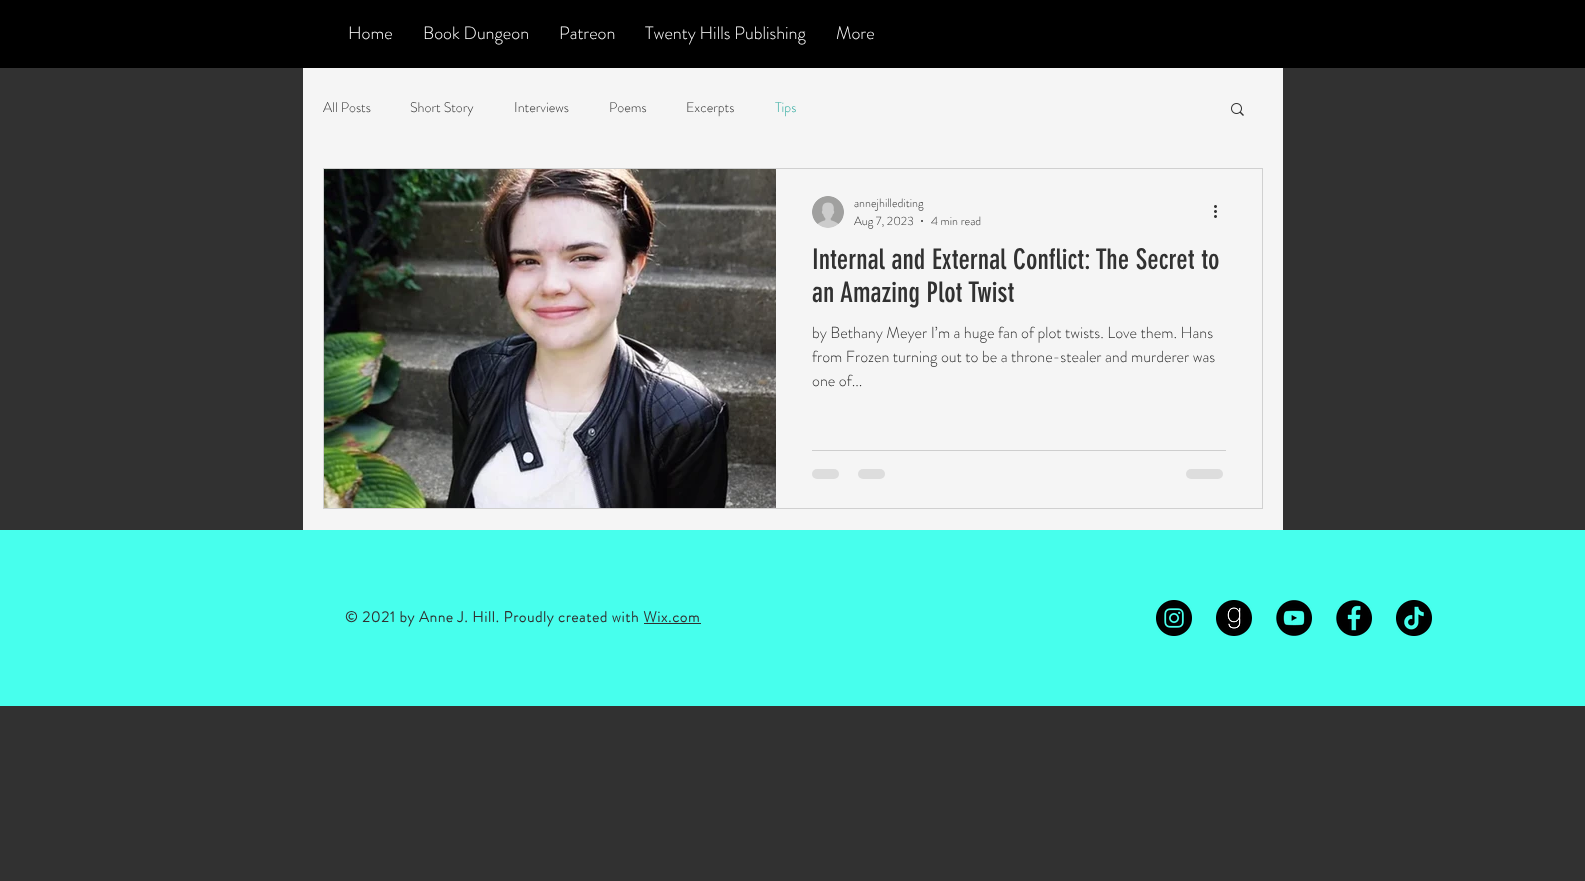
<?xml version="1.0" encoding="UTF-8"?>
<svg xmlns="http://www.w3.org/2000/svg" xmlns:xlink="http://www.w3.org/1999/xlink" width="1585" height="881">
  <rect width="100%" height="100%" fill="#313131" />
  <rect width="1585" height="68" fill="#000000" />
  <rect x="303" y="68" width="980" height="462" fill="#f5f5f5" />
  <image x="1231" y="103" width="13" height="13" xlink:href="image1.png" />
  <rect x="323.5" y="168.5" width="939" height="340" fill="none" stroke="#d0d0d0" />
  <image x="324" y="169" width="452" height="339" xlink:href="image2.png" />
  <image x="812" y="196" width="32" height="32" xlink:href="image3.png" />
  <circle cx="922" cy="221" r="1" fill="#313131" />
  <image x="1214" y="205" width="3" height="13" xlink:href="image4.png" />
  <rect x="812" y="450" width="414" height="1" fill="#cecece" />
  <rect x="812" y="469" width="27" height="10" rx="5" fill="#dddddd" />
  <rect x="858" y="469" width="27" height="10" rx="5" fill="#dddddd" />
  <rect x="1186" y="469" width="37" height="10" rx="5" fill="#dddddd" />
  <rect y="530" width="1585" height="176" fill="#47ffed" />
  <rect x="644" y="623" width="57" height="1" fill="#313131" />
  <image x="1156" y="600" width="36" height="36" xlink:href="image5.png" />
  <image x="1216" y="600" width="36" height="36" xlink:href="image6.png" />
  <image x="1276" y="600" width="36" height="36" xlink:href="image7.png" />
  <image x="1336" y="600" width="36" height="36" xlink:href="image8.png" />
  <image x="1396" y="600" width="36" height="36" xlink:href="image9.png" />
  <text x="348" y="39" style="font-family: 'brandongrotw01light'; font-size: 18px; font-weight: 300; fill: #ffffff">Home</text>
  <text x="423" y="39" style="font-family: 'brandongrotw01light'; font-size: 18px; font-weight: 300; fill: #ffffff">Book Dungeon</text>
  <text x="559" y="39" style="font-family: 'brandongrotw01light'; font-size: 18px; font-weight: 300; fill: #ffffff">Patreon</text>
  <text x="645" y="39" style="font-family: 'brandongrotw01light'; font-size: 18px; font-weight: 300; fill: #ffffff">Twenty Hills Publishing</text>
  <text x="836" y="39" style="font-family: 'brandongrotw01light'; font-size: 18px; font-weight: 300; fill: #ffffff">More</text>
  <text x="323" y="112" style="font-family: 'brandongrotw01light'; font-size: 14px; font-weight: 300; fill: #313131">All Posts</text>
  <text x="410" y="112" style="font-family: 'brandongrotw01light'; font-size: 14px; font-weight: 300; fill: #313131">Short Story</text>
  <text x="514" y="112" style="font-family: 'brandongrotw01light'; font-size: 14px; font-weight: 300; fill: #313131">Interviews</text>
  <text x="609" y="112" style="font-family: 'brandongrotw01light'; font-size: 14px; font-weight: 300; fill: #313131">Poems</text>
  <text x="686" y="112" style="font-family: 'brandongrotw01light'; font-size: 14px; font-weight: 300; fill: #313131">Excerpts</text>
  <text x="775" y="112" style="font-family: 'brandongrotw01light'; font-size: 14px; font-weight: 300; fill: #2faa9e">Tips</text>
  <text x="854" y="207" style="font-family: 'brandongrotw01light'; font-size: 12px; font-weight: 300; fill: #313131">annejhillediting</text>
  <text x="854" y="225" style="font-family: 'brandongrotw01light'; font-size: 12px; font-weight: 300; fill: #313131">Aug 7, 2023</text>
  <text x="931" y="225" style="font-family: 'brandongrotw01light'; font-size: 12px; font-weight: 300; fill: #313131">4 min read</text>
  <text x="812" y="269" style="font-family: 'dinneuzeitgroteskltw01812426'; font-size: 28px; fill: #313131">Internal and External Conflict: The Secret to</text>
  <text x="812" y="302" style="font-family: 'dinneuzeitgroteskltw01812426'; font-size: 28px; fill: #313131">an Amazing Plot Twist</text>
  <text x="812" y="338" style="font-family: 'brandongrotw01light'; font-size: 16px; font-weight: 300; fill: #313131">by Bethany Meyer I’m a huge fan of plot twists. Love them. Hans</text>
  <text x="812" y="362" style="font-family: 'brandongrotw01light'; font-size: 16px; font-weight: 300; fill: #313131">from Frozen turning out to be a throne-stealer and murderer was</text>
  <text x="812" y="386" style="font-family: 'brandongrotw01light'; font-size: 16px; font-weight: 300; fill: #313131">one of...</text>
  <text x="345" y="622" style="font-family: 'brandongrotw01light'; font-size: 15px; font-weight: bold; letter-spacing: 0.75px; fill: #313131">© 2021 by Anne J. Hill. Proudly created with Wix.com</text>
</svg>
